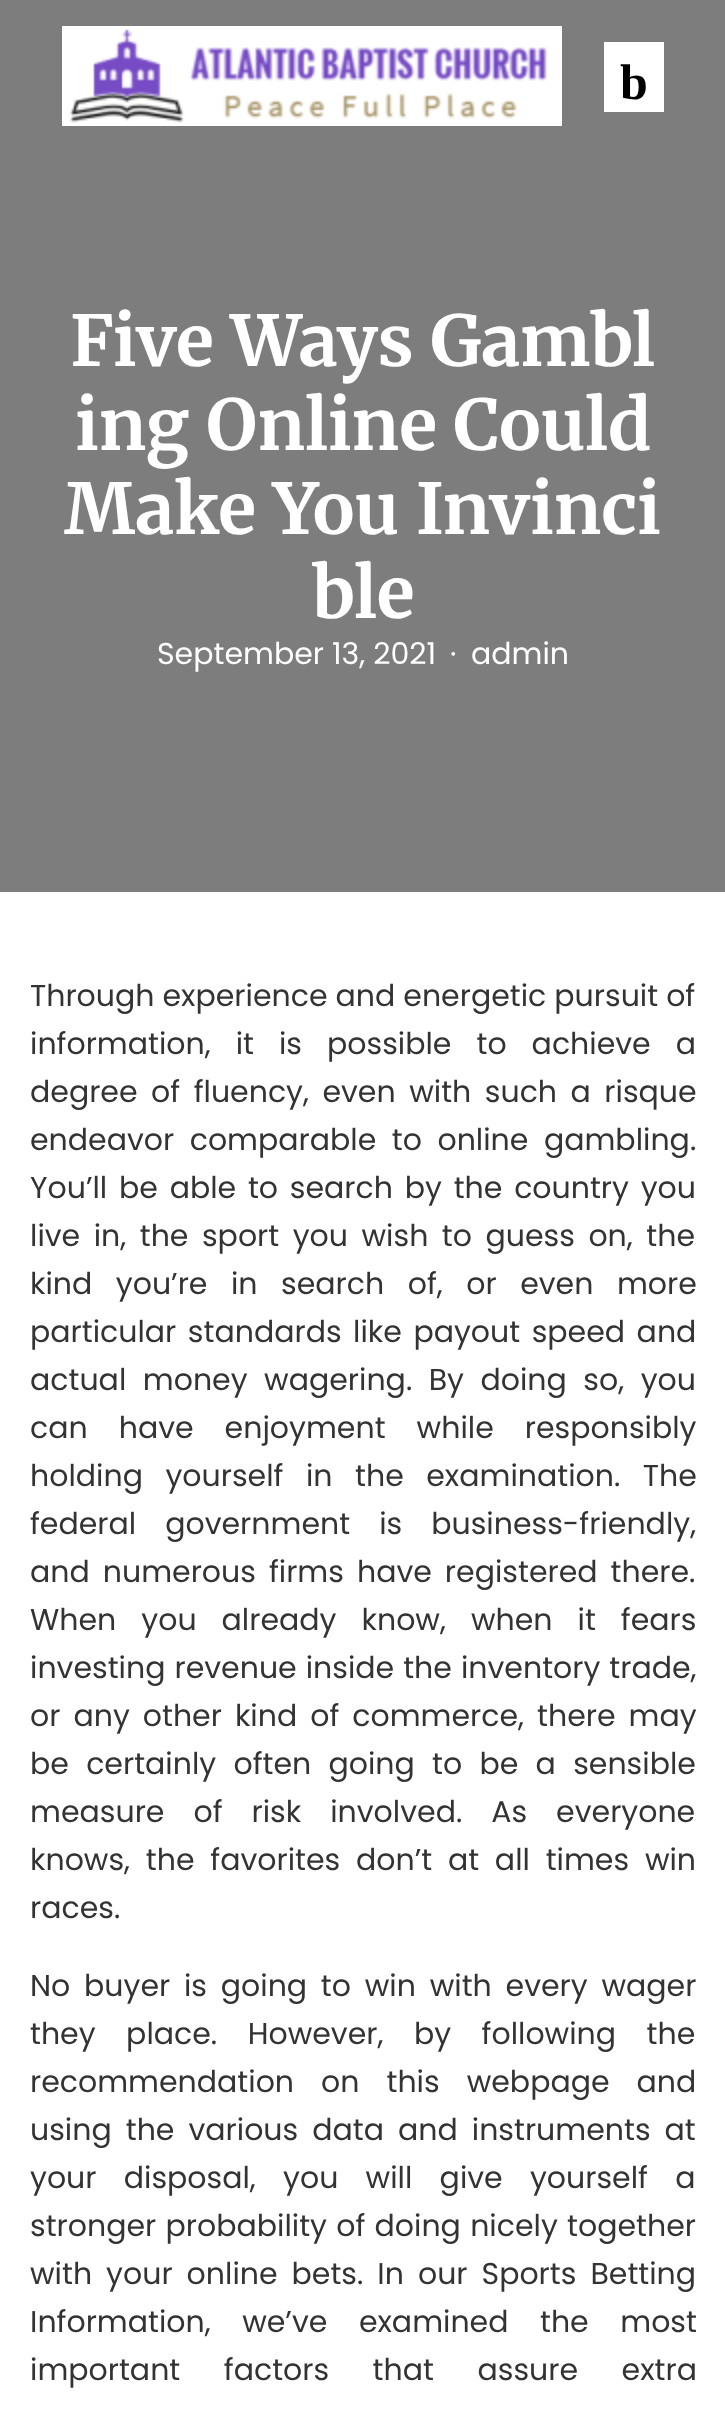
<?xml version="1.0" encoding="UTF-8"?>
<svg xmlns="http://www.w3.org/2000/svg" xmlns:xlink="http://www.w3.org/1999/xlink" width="725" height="2417">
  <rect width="100%" height="100%" fill="#7d7d7d" />
  <image x="62" y="26" width="500" height="100" xlink:href="image1.png" />
  <rect x="604" y="42" width="60" height="70" fill="#ffffff" />
  <rect y="892" width="725" height="1525" fill="#ffffff" />
  <text x="620" y="99" style="font-family: Liberation Serif; font-size: 50px; font-weight: bold; fill: #000000">b</text>
  <text x="70" y="366" style="font-family: Merriweather; font-size: 70px; font-weight: bold; fill: #ffffff">Five Ways Gambl</text>
  <text x="75" y="450" style="font-family: Merriweather; font-size: 70px; font-weight: bold; fill: #ffffff">ing Online Could</text>
  <text x="64" y="534" style="font-family: Merriweather; font-size: 70px; font-weight: bold; fill: #ffffff">Make You Invinci</text>
  <text x="312" y="618" style="font-family: Merriweather; font-size: 70px; font-weight: bold; fill: #ffffff">ble</text>
  <text x="157" y="664" style="font-family: Poppins; font-size: 30px; fill: #ffffff">September 13, 2021</text>
  <text x="450" y="664" style="font-family: Poppins; font-size: 30px; fill: #ffffff">·</text>
  <text x="471" y="664" style="font-family: Poppins; font-size: 30px; fill: #ffffff">admin</text>
  <text x="30" y="1006" style="font-family: Poppins; font-size: 30px; fill: #333333">Through experience and energetic pursuit of</text>
  <text x="30" y="1054" word-spacing="17" style="font-family: Poppins; font-size: 30px; fill: #333333">information, it is possible to achieve a</text>
  <text x="30" y="1102" word-spacing="5.5" style="font-family: Poppins; font-size: 30px; fill: #333333">degree of fluency, even with such a risque</text>
  <text x="30" y="1150" word-spacing="7.5" style="font-family: Poppins; font-size: 30px; fill: #333333">endeavor comparable to online gambling.</text>
  <text x="30" y="1198" word-spacing="3.75" style="font-family: Poppins; font-size: 30px; fill: #333333">You’ll be able to search by the country you</text>
  <text x="30" y="1246" word-spacing="5.5" style="font-family: Poppins; font-size: 30px; fill: #333333">live in, the sport you wish to guess on, the</text>
  <text x="30" y="1294" word-spacing="15.5" style="font-family: Poppins; font-size: 30px; fill: #333333">kind you’re in search of, or even more</text>
  <text x="30" y="1342" word-spacing="3.5" style="font-family: Poppins; font-size: 30px; fill: #333333">particular standards like payout speed and</text>
  <text x="30" y="1390" word-spacing="8.5" style="font-family: Poppins; font-size: 30px; fill: #333333">actual money wagering. By doing so, you</text>
  <text x="30" y="1438" word-spacing="23" style="font-family: Poppins; font-size: 30px; fill: #333333">can have enjoyment while responsibly</text>
  <text x="30" y="1486" word-spacing="14.5" style="font-family: Poppins; font-size: 30px; fill: #333333">holding yourself in the examination. The</text>
  <text x="30" y="1534" word-spacing="21" style="font-family: Poppins; font-size: 30px; fill: #333333">federal government is business-friendly,</text>
  <text x="30" y="1582" word-spacing="5" style="font-family: Poppins; font-size: 30px; fill: #333333">and numerous firms have registered there.</text>
  <text x="30" y="1630" word-spacing="17" style="font-family: Poppins; font-size: 30px; fill: #333333">When you already know, when it fears</text>
  <text x="30" y="1678" word-spacing="1" style="font-family: Poppins; font-size: 30px; fill: #333333">investing revenue inside the inventory trade,</text>
  <text x="30" y="1726" word-spacing="5" style="font-family: Poppins; font-size: 30px; fill: #333333">or any other kind of commerce, there may</text>
  <text x="30" y="1774" word-spacing="9.25" style="font-family: Poppins; font-size: 30px; fill: #333333">be certainly often going to be a sensible</text>
  <text x="30" y="1822" word-spacing="21" style="font-family: Poppins; font-size: 30px; fill: #333333">measure of risk involved. As everyone</text>
  <text x="30" y="1870" word-spacing="7.75" style="font-family: Poppins; font-size: 30px; fill: #333333">knows, the favorites don’t at all times win</text>
  <text x="30" y="1918" style="font-family: Poppins; font-size: 30px; fill: #333333">races.</text>
  <text x="30" y="1996" word-spacing="5.75" style="font-family: Poppins; font-size: 30px; fill: #333333">No buyer is going to win with every wager</text>
  <text x="30" y="2044" word-spacing="22.5" style="font-family: Poppins; font-size: 30px; fill: #333333">they place. However, by following the</text>
  <text x="30" y="2092" word-spacing="19" style="font-family: Poppins; font-size: 30px; fill: #333333">recommendation on this webpage and</text>
  <text x="30" y="2140" word-spacing="6" style="font-family: Poppins; font-size: 30px; fill: #333333">using the various data and instruments at</text>
  <text x="30" y="2188" word-spacing="19.25" style="font-family: Poppins; font-size: 30px; fill: #333333">your disposal, you will give yourself a</text>
  <text x="30" y="2236" word-spacing="1.25" style="font-family: Poppins; font-size: 30px; fill: #333333">stronger probability of doing nicely together</text>
  <text x="30" y="2284" word-spacing="6" style="font-family: Poppins; font-size: 30px; fill: #333333">with your online bets. In our Sports Betting</text>
  <text x="30" y="2332" word-spacing="23.5" style="font-family: Poppins; font-size: 30px; fill: #333333">Information, we’ve examined the most</text>
  <text x="30" y="2380" word-spacing="35.5" style="font-family: Poppins; font-size: 30px; fill: #333333">important factors that assure extra</text>
</svg>
